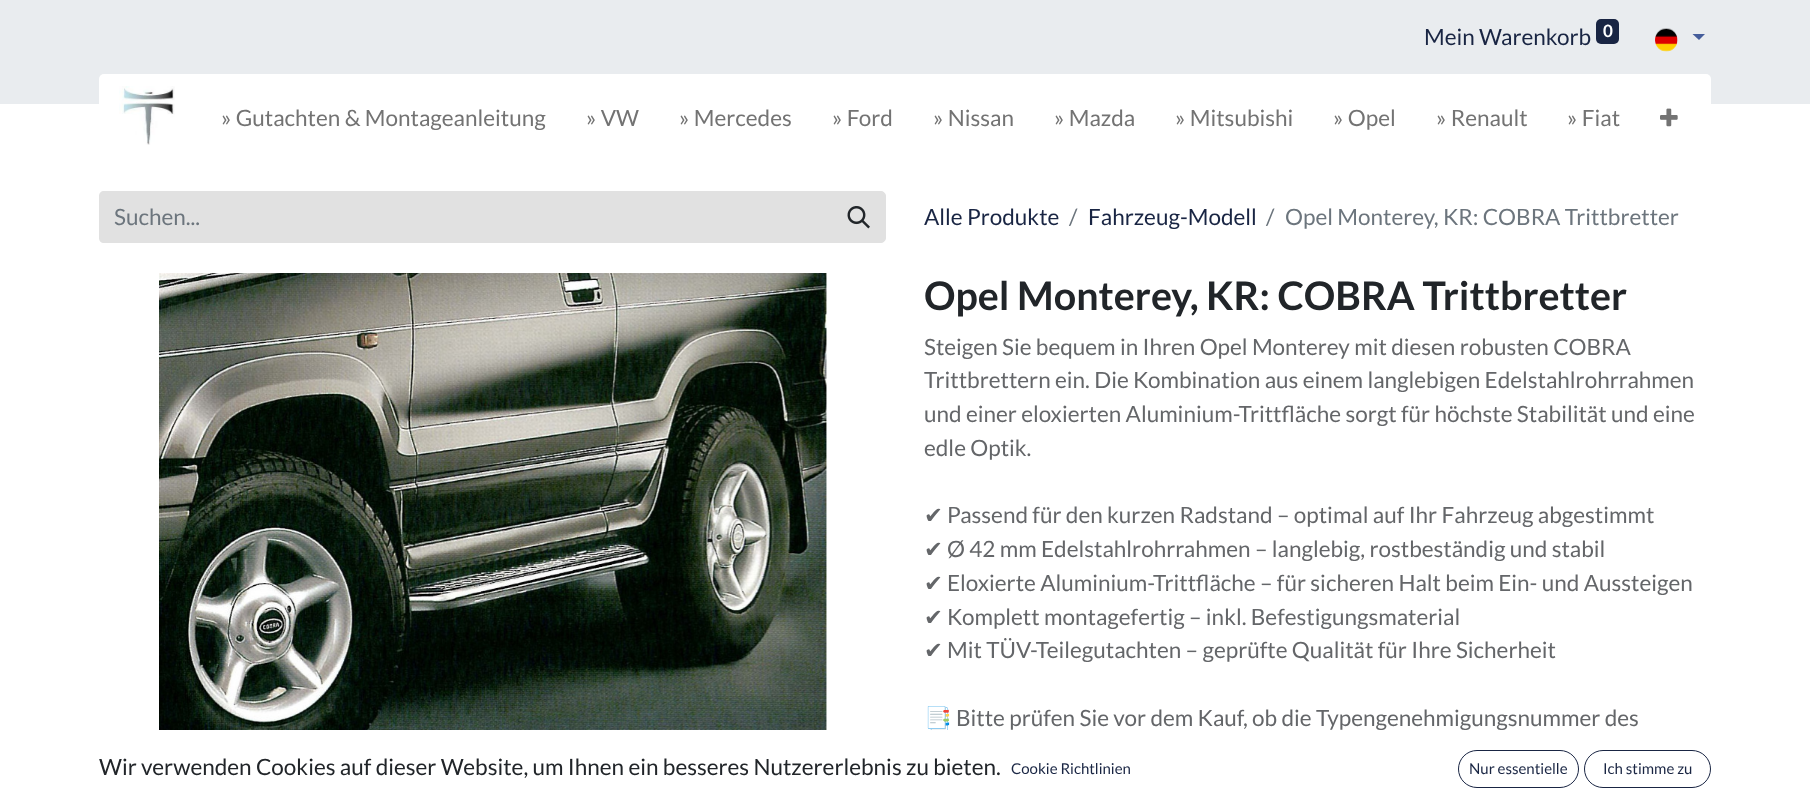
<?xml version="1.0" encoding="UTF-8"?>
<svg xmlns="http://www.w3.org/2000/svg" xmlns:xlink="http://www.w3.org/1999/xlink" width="1810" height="807">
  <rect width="100%" height="100%" fill="#ffffff" />
  <rect width="1810" height="104" fill="#e9ecef" />
  <rect x="1596" y="19" width="23" height="25" rx="5" fill="#192543" />
  <image x="1655" y="28" width="23" height="24" xlink:href="image1.png" />
  <path d="M 1692.5 34 h 12.5 l -6 6 z" fill="#455d9b" />
  <rect x="99" y="74" width="1612" height="87" rx="5" fill="#ffffff" />
  <image x="119" y="86" width="56" height="59" xlink:href="image2.png" />
  <image x="1660" y="108" width="18" height="19" xlink:href="image3.png" />
  <path d="M 104 191 h 729 v 52 h -729 c -3 0 -5 -2 -5 -5 v -42 c 0 -3 2 -5 5 -5 z" fill="#e1e1e1" />
  <path d="M 831.5 191.5 h 49.5 c 2.5 0 4.5 2 4.5 4.5 v 42 c 0 2.5 -2 4.5 -4.5 4.5 h -49.5 z" fill="#e1e1e1" stroke="#e1e1e1" />
  <image x="847" y="206" width="23" height="23" xlink:href="image4.png" />
  <image x="159" y="273" width="668" height="457" xlink:href="image5.png" />
  <rect x="1458.5" y="750.5" width="120" height="37" rx="18.5" fill="none" stroke="#192543" />
  <rect x="1584.5" y="750.5" width="126" height="37" rx="18.5" fill="none" stroke="#192543" />
  <text x="1424" y="45" style="font-family: Lato; font-size: 22.5px; fill: #192543">Mein Warenkorb</text>
  <text x="1603" y="37" style="font-family: Lato; font-size: 17px; font-weight: bold; fill: #ffffff">0</text>
  <text x="221" y="126" style="font-family: Lato; font-size: 22.5px; fill: #737373">» Gutachten &amp; Montageanleitung</text>
  <text x="586" y="126" style="font-family: Lato; font-size: 22.5px; fill: #737373">» VW</text>
  <text x="679" y="126" style="font-family: Lato; font-size: 22.5px; fill: #737373">» Mercedes</text>
  <text x="832" y="126" style="font-family: Lato; font-size: 22.5px; fill: #737373">» Ford</text>
  <text x="933" y="126" style="font-family: Lato; font-size: 22.5px; fill: #737373">» Nissan</text>
  <text x="1054" y="126" style="font-family: Lato; font-size: 22.5px; fill: #737373">» Mazda</text>
  <text x="1175" y="126" style="font-family: Lato; font-size: 22.5px; fill: #737373">» Mitsubishi</text>
  <text x="1333" y="126" style="font-family: Lato; font-size: 22.5px; fill: #737373">» Opel</text>
  <text x="1436" y="126" style="font-family: Lato; font-size: 22.5px; fill: #737373">» Renault</text>
  <text x="1567" y="126" style="font-family: Lato; font-size: 22.5px; fill: #737373">» Fiat</text>
  <text x="114" y="225" style="font-family: Lato; font-size: 22.5px; fill: #6c757d">Suchen...</text>
  <text x="924" y="225" style="font-family: Lato; font-size: 22.5px; fill: #192543">Alle Produkte</text>
  <text x="1069" y="225" style="font-family: Lato; font-size: 22.5px; fill: #6c757d">/</text>
  <text x="1088" y="225" style="font-family: Lato; font-size: 22.5px; fill: #192543">Fahrzeug-Modell</text>
  <text x="1266" y="225" style="font-family: Lato; font-size: 22.5px; fill: #6c757d">/</text>
  <text x="1285" y="225" style="font-family: Lato; font-size: 22.5px; fill: #6c757d">Opel Monterey, KR: COBRA Trittbretter</text>
  <text x="924" y="310" style="font-family: Lato; font-size: 39.4px; font-weight: bold; fill: #212529">Opel Monterey, KR: COBRA Trittbretter</text>
  <text x="924" y="355" style="font-family: Lato; font-size: 22.5px; fill: #646669">Steigen Sie bequem in Ihren Opel Monterey mit diesen robusten COBRA</text>
  <text x="924" y="388" style="font-family: Lato; font-size: 22.5px; fill: #646669">Trittbrettern ein. Die Kombination aus einem langlebigen Edelstahlrohrrahmen</text>
  <text x="924" y="422" style="font-family: Lato; font-size: 22.5px; fill: #646669">und einer eloxierten Aluminium-Trittfläche sorgt für höchste Stabilität und eine</text>
  <text x="924" y="456" style="font-family: Lato; font-size: 22.5px; fill: #646669">edle Optik.</text>
  <text x="924" y="523" style="font-family: DejaVu Sans; font-size: 22.5px; fill: #646669">✔</text>
  <text x="947" y="523" style="font-family: Lato; font-size: 22.5px; fill: #646669">Passend für den kurzen Radstand – optimal auf Ihr Fahrzeug abgestimmt</text>
  <text x="924" y="557" style="font-family: DejaVu Sans; font-size: 22.5px; fill: #646669">✔</text>
  <text x="947" y="557" style="font-family: Lato; font-size: 22.5px; fill: #646669">Ø 42 mm Edelstahlrohrrahmen – langlebig, rostbeständig und stabil</text>
  <text x="924" y="591" style="font-family: DejaVu Sans; font-size: 22.5px; fill: #646669">✔</text>
  <text x="947" y="591" style="font-family: Lato; font-size: 22.5px; fill: #646669">Eloxierte Aluminium-Trittfläche – für sicheren Halt beim Ein- und Aussteigen</text>
  <text x="924" y="625" style="font-family: DejaVu Sans; font-size: 22.5px; fill: #646669">✔</text>
  <text x="947" y="625" style="font-family: Lato; font-size: 22.5px; fill: #646669">Komplett montagefertig – inkl. Befestigungsmaterial</text>
  <text x="924" y="658" style="font-family: DejaVu Sans; font-size: 22.5px; fill: #646669">✔</text>
  <text x="947" y="658" style="font-family: Lato; font-size: 22.5px; fill: #646669">Mit TÜV-Teilegutachten – geprüfte Qualität für Ihre Sicherheit</text>
  <text x="924" y="726" style="font-family: Noto Color Emoji; font-size: 22.5px; fill: #646669">📑</text>
  <text x="956" y="726" style="font-family: Lato; font-size: 22.5px; fill: #646669">Bitte prüfen Sie vor dem Kauf, ob die Typengenehmigungsnummer des</text>
  <rect x="923" y="730" width="580" height="1" fill="#ffffff" />
  <text x="99" y="775" style="font-family: Lato; font-size: 22.5px; fill: #212529">Wir verwenden Cookies auf dieser Website, um Ihnen ein besseres Nutzererlebnis zu bieten.</text>
  <text x="1011" y="774" style="font-family: Lato; font-size: 15px; fill: #192543">Cookie Richtlinien</text>
  <text x="1469" y="774" style="font-family: Lato; font-size: 15px; fill: #192543">Nur essentielle</text>
  <text x="1603" y="774" style="font-family: Lato; font-size: 15px; fill: #192543">Ich stimme zu</text>
</svg>
